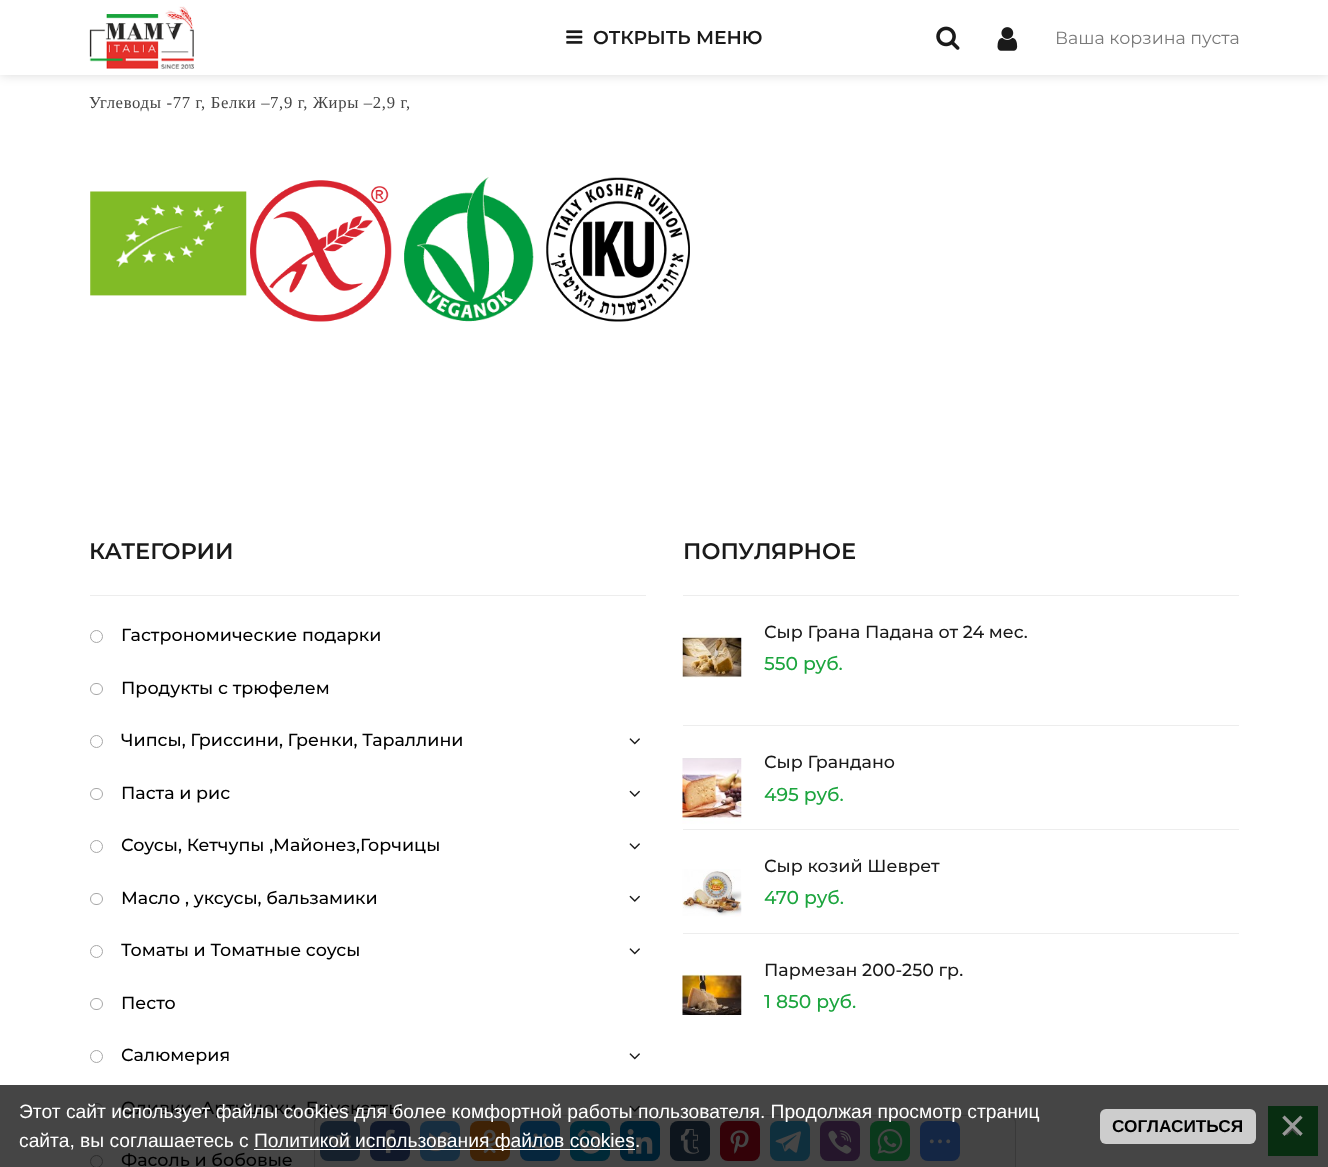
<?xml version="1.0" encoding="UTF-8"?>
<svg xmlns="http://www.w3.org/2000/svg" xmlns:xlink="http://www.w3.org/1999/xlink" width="1328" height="1167">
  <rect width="100%" height="100%" fill="#ffffff" />
  <rect y="1085" width="1328" height="82" fill="#454545" />
  <rect width="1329" height="75" fill="#000000" fill-opacity="0.15" filter="blur(5.5px)" />
  <rect width="1328" height="75" fill="#ffffff" />
  <image x="89" y="6" width="105" height="63" xlink:href="image1.png" />
  <image x="566" y="30" width="17" height="14" xlink:href="image2.png" />
  <image x="936" y="26" width="24" height="24" xlink:href="image3.png" />
  <image x="997" y="27" width="21" height="24" xlink:href="image4.png" />
  <image x="90" y="191" width="157" height="105" xlink:href="image5.png" />
  <image x="250" y="180" width="142" height="142" xlink:href="image6.png" />
  <image x="404" y="177" width="130" height="145" xlink:href="image7.png" />
  <image x="546" y="177" width="144" height="145" xlink:href="image8.png" />
  <rect x="90" y="595" width="556" height="1" fill="#ededed" />
  <circle cx="96.5" cy="636.5" r="6" fill="none" stroke="#a7a7a7" />
  <rect x="90.5" y="683.5" width="12" height="11" rx="5.5" fill="none" stroke="#a7a7a7" />
  <circle cx="96.5" cy="741.5" r="6" fill="none" stroke="#a7a7a7" />
  <image x="629" y="738" width="11" height="7" xlink:href="image9.png" />
  <rect x="90.5" y="788.5" width="12" height="11" rx="5.5" fill="none" stroke="#a7a7a7" />
  <image x="629" y="790" width="11" height="7" xlink:href="image10.png" />
  <circle cx="96.5" cy="846.5" r="6" fill="none" stroke="#a7a7a7" />
  <image x="629" y="843" width="11" height="7" xlink:href="image9.png" />
  <rect x="90.5" y="893.5" width="12" height="11" rx="5.5" fill="none" stroke="#a7a7a7" />
  <image x="629" y="895" width="11" height="7" xlink:href="image10.png" />
  <circle cx="96.5" cy="951.5" r="6" fill="none" stroke="#a7a7a7" />
  <image x="629" y="948" width="11" height="7" xlink:href="image9.png" />
  <rect x="90.5" y="998.5" width="12" height="11" rx="5.5" fill="none" stroke="#a7a7a7" />
  <circle cx="96.5" cy="1056.5" r="6" fill="none" stroke="#a7a7a7" />
  <image x="629" y="1053" width="11" height="7" xlink:href="image9.png" />
  <rect x="90.5" y="1103.5" width="12" height="11" rx="5.5" fill="none" stroke="#2d2d2d" />
  <image x="629" y="1105" width="11" height="7" xlink:href="image11.png" />
  <circle cx="96.5" cy="1161.5" r="6" fill="none" stroke="#2d2d2d" />
  <rect x="683" y="595" width="556" height="1" fill="#ededed" />
  <image x="682" y="634" width="60" height="44" xlink:href="image12.png" />
  <rect x="683" y="725" width="556" height="1" fill="#ededed" />
  <image x="682" y="758" width="60" height="66" xlink:href="image13.png" />
  <rect x="683" y="829" width="556" height="1" fill="#ededed" />
  <image x="682" y="869" width="60" height="48" xlink:href="image14.png" />
  <rect x="683" y="933" width="556" height="1" fill="#ededed" />
  <image x="682" y="970" width="60" height="47" xlink:href="image15.png" />
  <rect x="1100" y="1109" width="156" height="35" rx="6" fill="#cdcdcd" />
  <rect x="1268" y="1106" width="50" height="50" fill="#082d11" />
  <image x="1286" y="1128" width="13" height="8" xlink:href="image29.png" />
  <text x="593" y="44" style="font-family: Montserrat; font-size: 18.75px; font-weight: 600; fill: #1a1a1a">ОТКРЫТЬ МЕНЮ</text>
  <text x="1055" y="44" style="font-family: Montserrat; font-size: 17.5px; fill: #7a7a7a">Ваша корзина пуста</text>
  <text x="89" y="108" style="font-family: Liberation Serif; font-size: 16.7px; letter-spacing: 0.65px; fill: #454545">Углеводы -77 г, Белки –7,9 г, Жиры –2,9 г,</text>
  <text x="89" y="559" style="font-family: Montserrat; font-size: 22.5px; font-weight: 600; fill: #1a1a1a">КАТЕГОРИИ</text>
  <text x="121" y="641" style="font-family: Montserrat; font-size: 17.5px; font-weight: 500; fill: #000000">Гастрономические подарки</text>
  <text x="121" y="694" style="font-family: Montserrat; font-size: 17.5px; font-weight: 500; fill: #000000">Продукты с трюфелем</text>
  <text x="121" y="746" style="font-family: Montserrat; font-size: 17.5px; font-weight: 500; fill: #000000">Чипсы, Гриссини, Гренки, Тараллини</text>
  <text x="121" y="799" style="font-family: Montserrat; font-size: 17.5px; font-weight: 500; fill: #000000">Паста и рис</text>
  <text x="121" y="851" style="font-family: Montserrat; font-size: 17.5px; font-weight: 500; fill: #000000">Соусы, Кетчупы ,Майонез,Горчицы</text>
  <text x="121" y="904" style="font-family: Montserrat; font-size: 17.5px; font-weight: 500; fill: #000000">Масло , уксусы, бальзамики</text>
  <text x="121" y="956" style="font-family: Montserrat; font-size: 17.5px; font-weight: 500; fill: #000000">Томаты и Томатные соусы</text>
  <text x="121" y="1009" style="font-family: Montserrat; font-size: 17.5px; font-weight: 500; fill: #000000">Песто</text>
  <text x="121" y="1061" style="font-family: Montserrat; font-size: 17.5px; font-weight: 500; fill: #000000">Салюмерия</text>
  <text x="121" y="1114" style="font-family: Montserrat; font-size: 17.5px; font-weight: 500; fill: #000000">Оливки, Артишоки, Брускетты</text>
  <text x="121" y="1166" style="font-family: Montserrat; font-size: 17.5px; font-weight: 500; fill: #000000">Фасоль и бобовые</text>
  <text x="683" y="559" style="font-family: Montserrat; font-size: 22.5px; font-weight: 600; fill: #1a1a1a">ПОПУЛЯРНОЕ</text>
  <text x="764" y="638" style="font-family: Montserrat; font-size: 17.5px; font-weight: 500; fill: #1a1a1a">Сыр Грана Падана от 24 мес.</text>
  <text x="764" y="670" style="font-family: Montserrat; font-size: 18.75px; font-weight: 500; fill: #1ca53e">550 руб.</text>
  <text x="764" y="768" style="font-family: Montserrat; font-size: 17.5px; font-weight: 500; fill: #1a1a1a">Сыр Грандано</text>
  <text x="764" y="801" style="font-family: Montserrat; font-size: 18.75px; font-weight: 500; fill: #1ca53e">495 руб.</text>
  <text x="764" y="872" style="font-family: Montserrat; font-size: 17.5px; font-weight: 500; fill: #1a1a1a">Сыр козий Шеврет</text>
  <text x="764" y="904" style="font-family: Montserrat; font-size: 18.75px; font-weight: 500; fill: #1ca53e">470 руб.</text>
  <text x="764" y="976" style="font-family: Montserrat; font-size: 17.5px; font-weight: 500; fill: #1a1a1a">Пармезан 200-250 гр.</text>
  <text x="764" y="1008" style="font-family: Montserrat; font-size: 18.75px; font-weight: 500; fill: #1ca53e">1 850 руб.</text>
  <path d="M 322 1115.5 h 686 c 4 0 7.5 3.5 7.5 7.5 v 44.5 h -701 v -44.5 c 0 -4 3.5 -7.5 7.5 -7.5 z" fill="none" stroke="#393939" />
  <text x="19" y="1147" style="font-family: Liberation Sans; font-size: 19.25px; fill: #ffffff">сайта, вы соглашаетесь с</text>
  <text x="1112" y="1132" style="font-family: Liberation Sans; font-size: 17.25px; font-weight: bold; fill: #000000">СОГЛАСИТЬСЯ</text>
  <text x="1279" y="1141" style="font-family: Liberation Sans; font-size: 46px; fill: #999999">×</text>
  <path d="M 322 1115.5 h 686 c 4 0 7.5 3.5 7.5 7.5 v 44.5 h -701 v -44.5 c 0 -4 3.5 -7.5 7.5 -7.5 z" fill="#444444" stroke="#393939" />
  <rect x="320" y="1121" width="40" height="40" rx="8" fill="#15202c" />
  <image x="328" y="1135" width="24" height="13" xlink:href="image16.png" />
  <rect x="370" y="1121" width="40" height="40" rx="8" fill="#101829" />
  <image x="383" y="1129" width="12" height="25" xlink:href="image17.png" />
  <rect x="420" y="1121" width="40" height="40" rx="8" fill="#172e40" />
  <image x="428" y="1131" width="24" height="21" xlink:href="image18.png" />
  <rect x="470" y="1121" width="40" height="40" rx="8" fill="#3e2206" />
  <image x="482" y="1129" width="15" height="24" xlink:href="image19.png" />
  <rect x="520" y="1121" width="40" height="40" rx="8" fill="#06263d" />
  <image x="528" y="1133" width="24" height="16" xlink:href="image20.png" />
  <rect x="570" y="1121" width="40" height="40" rx="8" fill="#002937" />
  <image x="577" y="1129" width="26" height="25" xlink:href="image21.png" />
  <rect x="620" y="1121" width="40" height="40" rx="8" fill="#002031" />
  <image x="627" y="1129" width="26" height="25" xlink:href="image22.png" />
  <rect x="254" y="1149" width="381" height="1" fill="#ffffff" />
  <text x="254" y="1147" style="font-family: Liberation Sans; font-size: 19.25px; fill: #ffffff">Политикой использования файлов cookies.</text>
  <rect x="670" y="1121" width="40" height="40" rx="8" fill="#0d151d" />
  <image x="680" y="1129" width="19" height="25" xlink:href="image23.png" />
  <rect x="720" y="1121" width="40" height="40" rx="8" fill="#330208" />
  <image x="730" y="1130" width="19" height="24" xlink:href="image24.png" />
  <rect x="770" y="1121" width="40" height="40" rx="8" fill="#0f2f3d" />
  <image x="775" y="1131" width="26" height="22" xlink:href="image25.png" />
  <rect x="820" y="1121" width="40" height="40" rx="8" fill="#25162b" />
  <image x="828" y="1130" width="24" height="24" xlink:href="image26.png" />
  <rect x="870" y="1121" width="40" height="40" rx="8" fill="#0a391c" />
  <image x="877" y="1129" width="26" height="25" xlink:href="image27.png" />
  <rect x="920" y="1121" width="40" height="40" rx="8" fill="#142644" />
  <text x="19" y="1118" style="font-family: Liberation Sans; font-size: 19.25px; fill: #ffffff">Этот сайт использует файлы cookies для более комфортной работы пользователя. Продолжая просмотр страниц</text>
  <image x="929" y="1139" width="22" height="5" xlink:href="image28.png" />
</svg>
